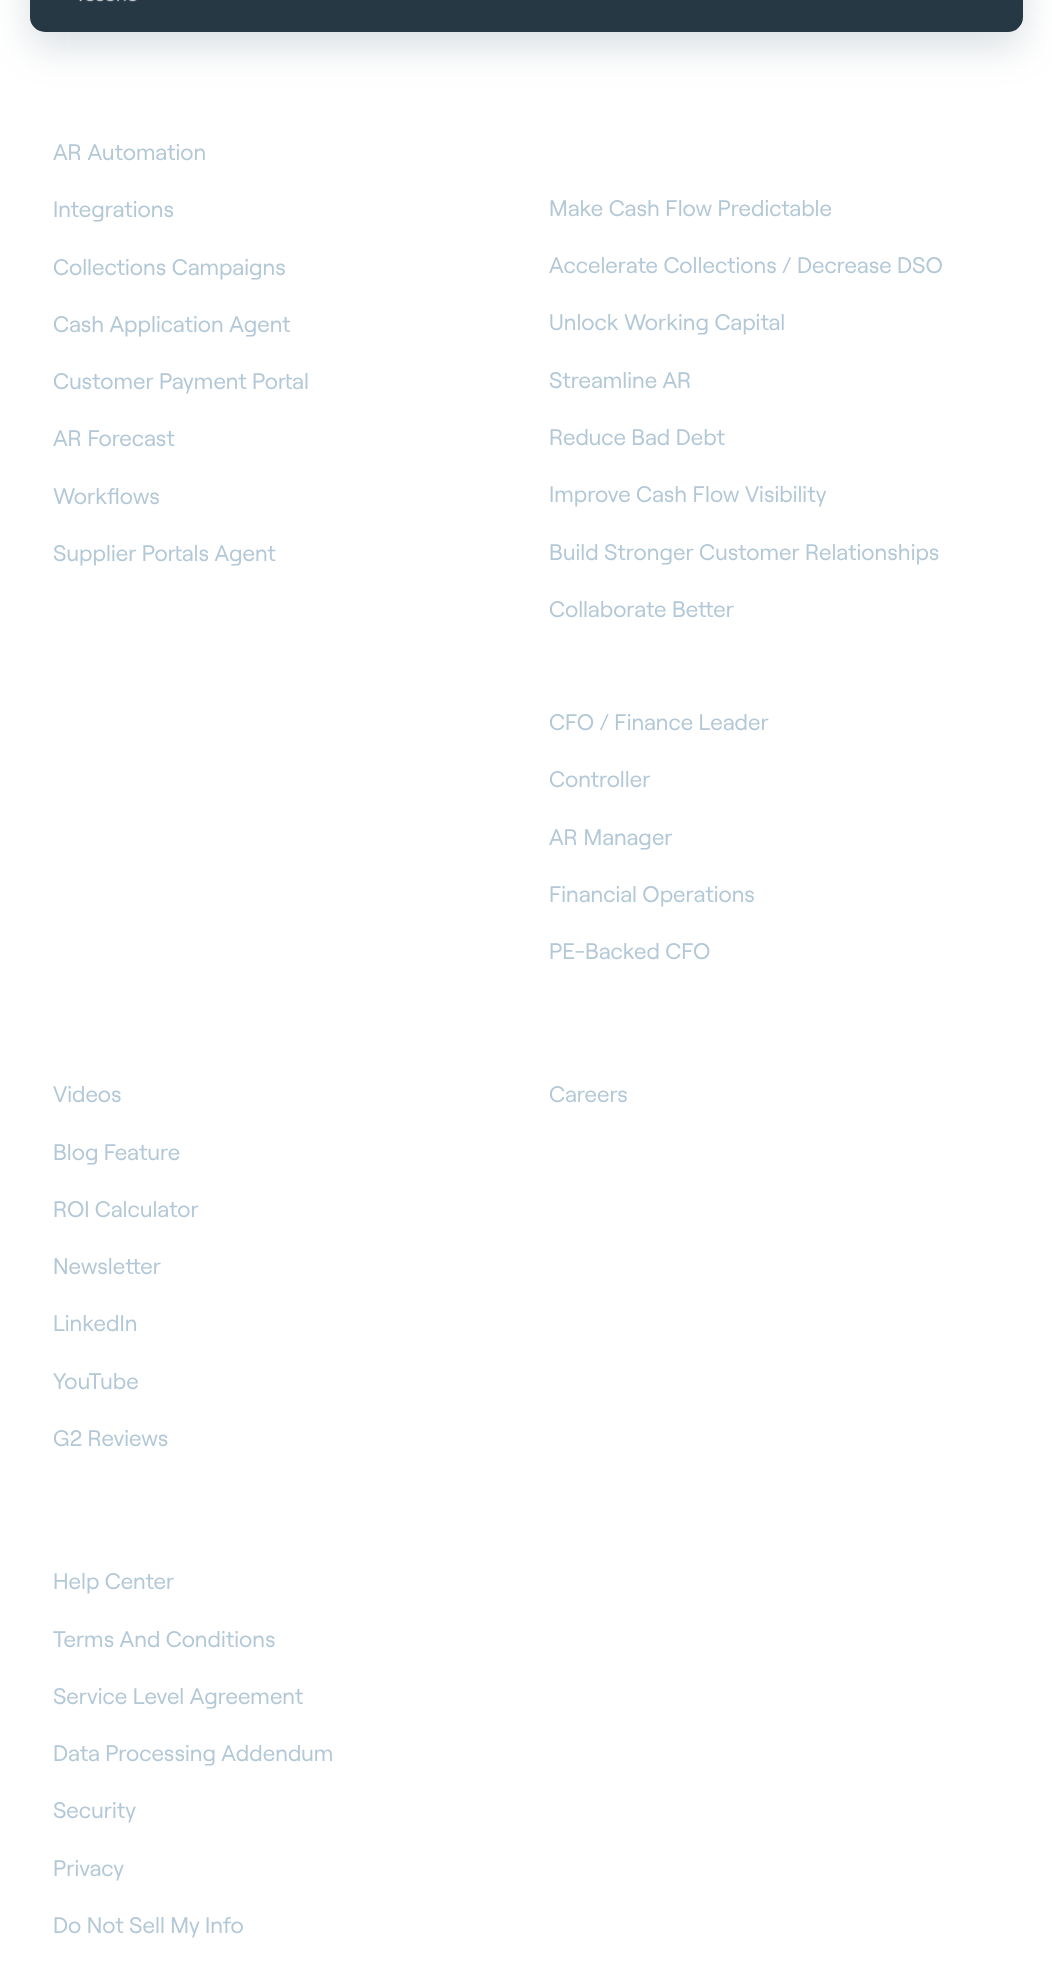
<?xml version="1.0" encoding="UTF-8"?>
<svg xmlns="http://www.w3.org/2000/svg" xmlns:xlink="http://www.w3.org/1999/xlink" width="1052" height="1963">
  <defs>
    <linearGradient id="g1" gradientUnits="userSpaceOnUse" x1="527" y1="-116" x2="527" y2="32"><stop offset="0" stop-color="#2c3e4a" /><stop offset="1" stop-color="#253743" /></linearGradient>
  </defs>
  <rect width="100%" height="100%" fill="#ffffff" />
  <rect x="30" y="-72" width="993" height="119" rx="15" fill="#415d70" fill-opacity="0.2" filter="blur(19px)" />
  <rect x="30" y="-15" width="993" height="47" rx="15" fill="url(#g1)" />
  <image x="79" y="0" width="58" height="2" xlink:href="image1.png" />
  <text x="53" y="160" style="font-family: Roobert; font-size: 22.5px; fill: #b3c8d7">AR Automation</text>
  <text x="53" y="217" style="font-family: Roobert; font-size: 22.5px; fill: #b3c8d7">Integrations</text>
  <text x="53" y="275" style="font-family: Roobert; font-size: 22.5px; fill: #b3c8d7">Collections Campaigns</text>
  <text x="53" y="332" style="font-family: Roobert; font-size: 22.5px; fill: #b3c8d7">Cash Application Agent</text>
  <text x="53" y="389" style="font-family: Roobert; font-size: 22.5px; fill: #b3c8d7">Customer Payment Portal</text>
  <text x="53" y="446" style="font-family: Roobert; font-size: 22.5px; fill: #b3c8d7">AR Forecast</text>
  <text x="53" y="504" style="font-family: Roobert; font-size: 22.5px; fill: #b3c8d7">Workflows</text>
  <text x="53" y="561" style="font-family: Roobert; font-size: 22.5px; fill: #b3c8d7">Supplier Portals Agent</text>
  <text x="549" y="216" style="font-family: Roobert; font-size: 22.5px; fill: #b3c8d7">Make Cash Flow Predictable</text>
  <text x="549" y="273" style="font-family: Roobert; font-size: 22.5px; fill: #b3c8d7">Accelerate Collections / Decrease DSO</text>
  <text x="549" y="330" style="font-family: Roobert; font-size: 22.5px; fill: #b3c8d7">Unlock Working Capital</text>
  <text x="549" y="388" style="font-family: Roobert; font-size: 22.5px; fill: #b3c8d7">Streamline AR</text>
  <text x="549" y="445" style="font-family: Roobert; font-size: 22.5px; fill: #b3c8d7">Reduce Bad Debt</text>
  <text x="549" y="502" style="font-family: Roobert; font-size: 22.5px; fill: #b3c8d7">Improve Cash Flow Visibility</text>
  <text x="549" y="560" style="font-family: Roobert; font-size: 22.5px; fill: #b3c8d7">Build Stronger Customer Relationships</text>
  <text x="549" y="617" style="font-family: Roobert; font-size: 22.5px; fill: #b3c8d7">Collaborate Better</text>
  <text x="549" y="730" style="font-family: Roobert; font-size: 22.5px; fill: #b3c8d7">CFO / Finance Leader</text>
  <text x="549" y="787" style="font-family: Roobert; font-size: 22.5px; fill: #b3c8d7">Controller</text>
  <text x="549" y="845" style="font-family: Roobert; font-size: 22.5px; fill: #b3c8d7">AR Manager</text>
  <text x="549" y="902" style="font-family: Roobert; font-size: 22.5px; fill: #b3c8d7">Financial Operations</text>
  <text x="549" y="959" style="font-family: Roobert; font-size: 22.5px; fill: #b3c8d7">PE-Backed CFO</text>
  <text x="53" y="1102" style="font-family: Roobert; font-size: 22.5px; fill: #b3c8d7">Videos</text>
  <text x="53" y="1160" style="font-family: Roobert; font-size: 22.5px; fill: #b3c8d7">Blog Feature</text>
  <text x="53" y="1217" style="font-family: Roobert; font-size: 22.5px; fill: #b3c8d7">ROI Calculator</text>
  <text x="53" y="1274" style="font-family: Roobert; font-size: 22.5px; fill: #b3c8d7">Newsletter</text>
  <text x="53" y="1331" style="font-family: Roobert; font-size: 22.5px; fill: #b3c8d7">LinkedIn</text>
  <text x="53" y="1389" style="font-family: Roobert; font-size: 22.5px; fill: #b3c8d7">YouTube</text>
  <text x="53" y="1446" style="font-family: Roobert; font-size: 22.5px; fill: #b3c8d7">G2 Reviews</text>
  <text x="549" y="1102" style="font-family: Roobert; font-size: 22.5px; fill: #b3c8d7">Careers</text>
  <text x="53" y="1589" style="font-family: Roobert; font-size: 22.5px; fill: #b3c8d7">Help Center</text>
  <text x="53" y="1647" style="font-family: Roobert; font-size: 22.5px; fill: #b3c8d7">Terms And Conditions</text>
  <text x="53" y="1704" style="font-family: Roobert; font-size: 22.5px; fill: #b3c8d7">Service Level Agreement</text>
  <text x="53" y="1761" style="font-family: Roobert; font-size: 22.5px; fill: #b3c8d7">Data Processing Addendum</text>
  <text x="53" y="1818" style="font-family: Roobert; font-size: 22.5px; fill: #b3c8d7">Security</text>
  <text x="53" y="1876" style="font-family: Roobert; font-size: 22.5px; fill: #b3c8d7">Privacy</text>
  <text x="53" y="1933" style="font-family: Roobert; font-size: 22.5px; fill: #b3c8d7">Do Not Sell My Info</text>
</svg>
